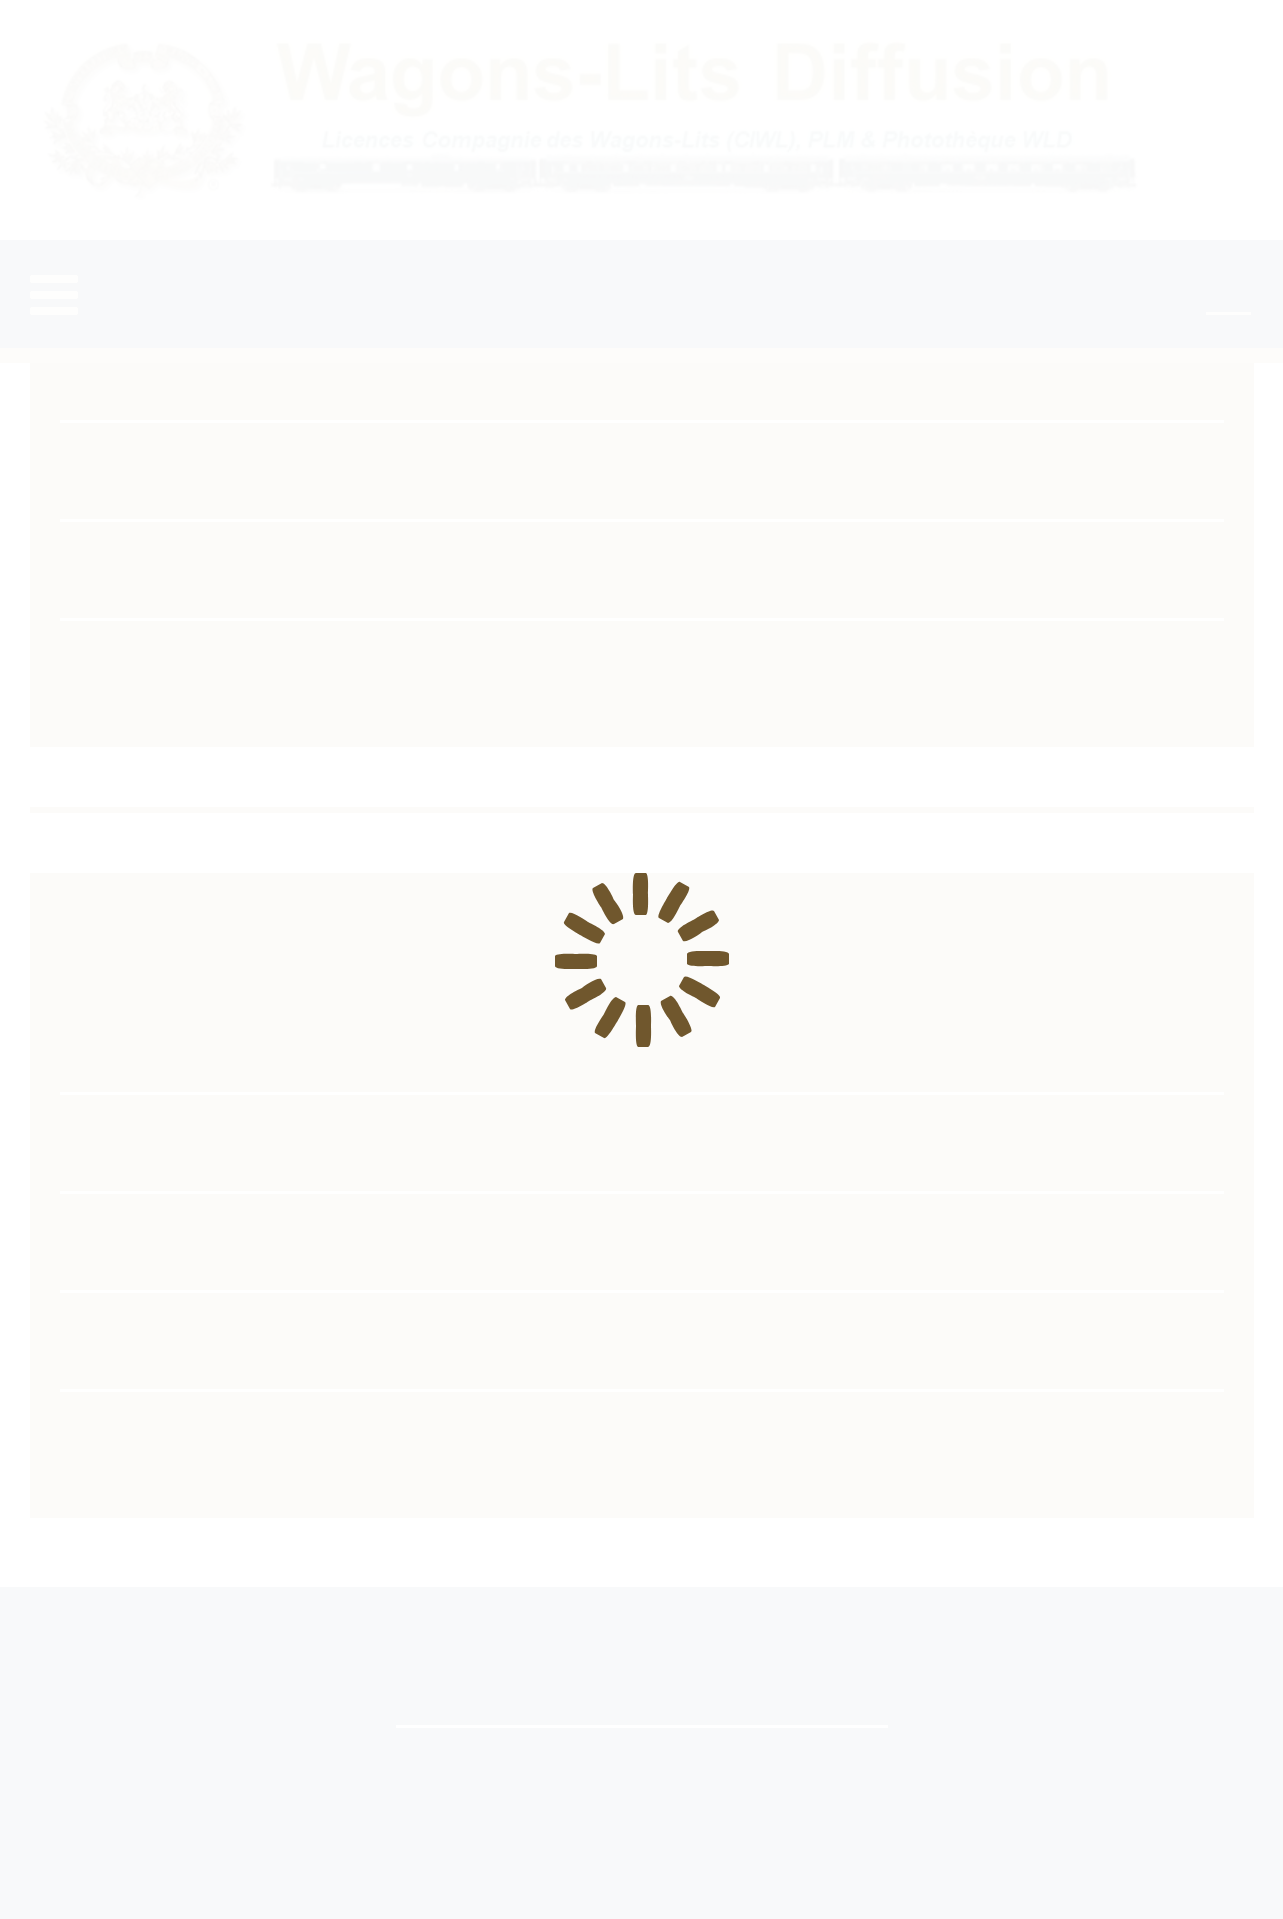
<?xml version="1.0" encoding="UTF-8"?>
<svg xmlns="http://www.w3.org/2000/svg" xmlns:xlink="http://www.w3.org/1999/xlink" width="1283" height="1919">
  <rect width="100%" height="100%" fill="#ffffff" />
  <rect y="348" width="1283" height="15" fill="#fdfcfa" />
  <image x="30" y="30" width="1117" height="175" xlink:href="image1.png" />
  <rect y="240" width="1283" height="108" fill="#f8f9fa" />
  <image x="30" y="275" width="48" height="40" xlink:href="image2.png" />
  <rect x="1206" y="312" width="45" height="3" fill="#fefefd" />
  <rect x="30" y="363" width="1224" height="384" fill="#fcfbf9" />
  <rect x="60" y="420" width="1164" height="3" fill="#ffffff" />
  <rect x="60" y="519" width="1164" height="3" fill="#ffffff" />
  <rect x="60" y="618" width="1164" height="3" fill="#ffffff" />
  <rect x="30" y="807" width="1224" height="6" fill="#fcfbf9" />
  <rect x="30" y="873" width="1224" height="645" fill="#fcfbf9" />
  <rect x="60" y="1092" width="1164" height="3" fill="#ffffff" />
  <rect x="60" y="1191" width="1164" height="3" fill="#ffffff" />
  <rect x="60" y="1290" width="1164" height="3" fill="#ffffff" />
  <rect x="60" y="1389" width="1164" height="3" fill="#ffffff" />
  <path d="M 564 922 l 5 -9 c 3 -2 16 7 19 9 c 2 1 17 8 17 12 l -5 9 c -2 3 -18 -7 -20 -8 c -1 -1 -18 -10 -16 -13 z" fill="#70572d" />
  <path d="M 593 888 l 9 -5 c 4 0 11 14 12 17 c 2 2 11 15 9 19 l -9 5 c -4 2 -12 -15 -13 -17 c -1 -1 -11 -17 -8 -19 z" fill="#70572d" />
  <path d="M 636 873 h 10 c 3 2 2 18 2 21 c 0 3 1 19 -2 21 h -10 c -4 0 -3 -19 -3 -21 c 0 -2 -1 -21 3 -21 z m 44 9 l 9 5 c 2 3 -7 16 -9 19 c -1 2 -8 17 -12 17 l -9 -5 c -3 -2 7 -18 8 -20 c 1 -1 10 -18 13 -16 z" fill="#70572d" />
  <path d="M 714 911 l 5 9 c 0 4 -14 11 -17 12 c -2 2 -15 11 -19 9 l -5 -9 c -2 -4 15 -12 17 -13 c 1 -1 17 -11 19 -8 z m 15 43 v 10 c -2 3 -18 2 -21 2 c -3 0 -19 1 -21 -2 v -10 c 0 -4 19 -3 21 -3 c 2 0 21 -1 21 3 z" fill="#70572d" />
  <path d="M 604 1038 l -9 -5 c -2 -3 7 -16 9 -19 c 1 -2 8 -17 12 -17 l 9 5 c 3 2 -7 18 -8 20 c -1 1 -10 18 -13 16 z" fill="#70572d" />
  <path d="M 570 1009 l -5 -9 c 0 -4 14 -11 17 -12 c 2 -2 15 -11 19 -9 l 5 9 c 2 4 -15 12 -17 13 c -1 1 -17 11 -19 8 z m -15 -43 v -10 c 2 -3 18 -2 21 -2 c 3 0 19 -1 21 2 v 10 c 0 4 -19 3 -21 3 c -2 0 -21 1 -21 -3 z" fill="#70572d" />
  <path d="M 720 998 l -5 9 c -3 2 -16 -7 -19 -9 c -2 -1 -17 -8 -17 -12 l 5 -9 c 2 -3 18 7 20 8 c 1 1 18 10 16 13 z" fill="#70572d" />
  <path d="M 691 1032 l -9 5 c -4 0 -11 -14 -12 -17 c -2 -2 -11 -15 -9 -19 l 9 -5 c 4 -2 12 15 13 17 c 1 1 11 17 8 19 z m -43 15 h -10 c -3 -2 -2 -18 -2 -21 c 0 -3 -1 -19 2 -21 h 10 c 4 0 3 19 3 21 c 0 2 1 21 -3 21 z" fill="#70572d" />
  <rect y="1587" width="1283" height="332" fill="#f8f9fa" />
  <rect x="396" y="1725" width="492" height="3" fill="#ffffff" />
</svg>
